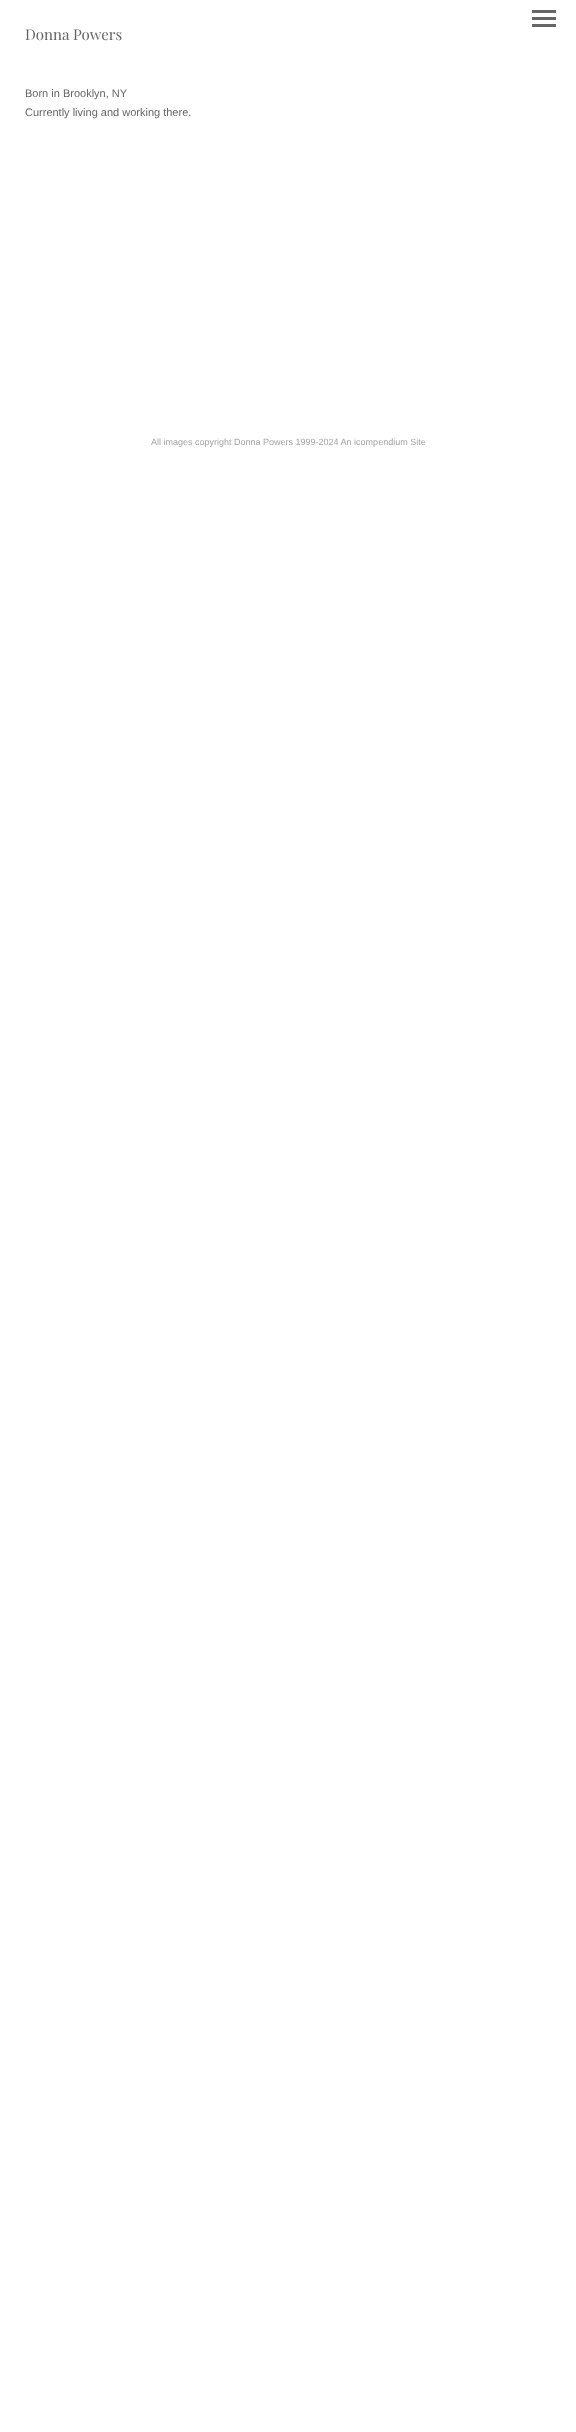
<?xml version="1.0" encoding="UTF-8"?>
<svg xmlns="http://www.w3.org/2000/svg" xmlns:xlink="http://www.w3.org/1999/xlink" width="576" height="2432">
  <rect width="100%" height="100%" fill="#ffffff" />
  <rect x="532" y="10" width="24" height="3" fill="#666666" />
  <rect x="532" y="17" width="24" height="3" fill="#666666" />
  <rect x="532" y="24" width="24" height="3" fill="#666666" />
  <text x="25" y="40" style="font-family: Playfair Display; font-size: 15px; fill: #656565">Donna Powers</text>
  <text x="25" y="97" style="font-family: Liberation Sans; font-size: 11px; fill: #656565">Born in Brooklyn, NY</text>
  <text x="25" y="116" style="font-family: Liberation Sans; font-size: 11px; fill: #656565">Currently living and working there.</text>
  <text x="151" y="445" style="font-family: Liberation Sans; font-size: 9px; fill: #a4a4a4">All images copyright Donna Powers 1999-2024 An icompendium Site</text>
</svg>
